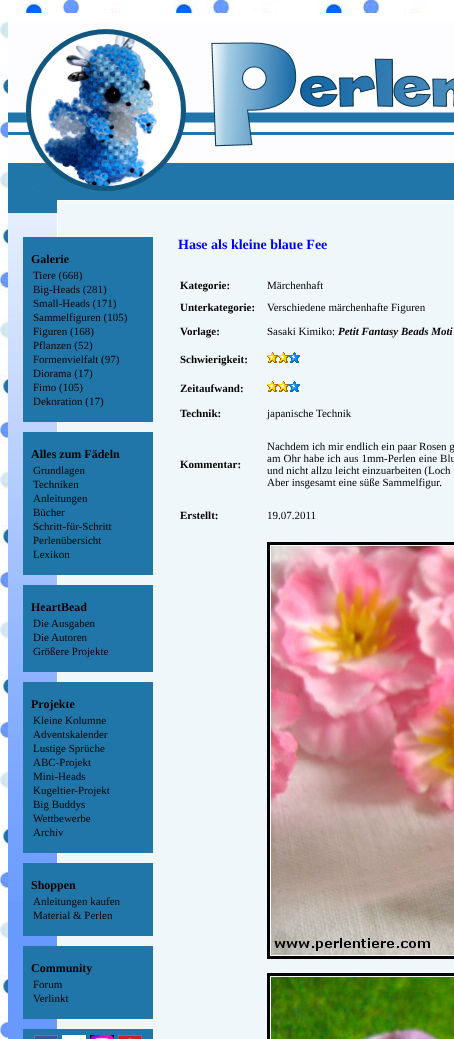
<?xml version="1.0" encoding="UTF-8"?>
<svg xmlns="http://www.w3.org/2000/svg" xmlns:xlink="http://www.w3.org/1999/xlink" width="454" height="1039">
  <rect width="100%" height="100%" fill="#ffffff" />
  <image x="0" y="0" width="454" height="1039" xlink:href="image1.png" />
  <rect x="8" y="902" width="49" height="137" fill="#6899ff" />
  <image x="8" y="13" width="446" height="889" xlink:href="image2.png" />
  <image x="8" y="23" width="446" height="190" xlink:href="image3.png" />
  <rect x="57.5" y="200.5" width="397" height="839" fill="#f0f7fa" stroke="#ffffff" />
  <rect x="23" y="237" width="130" height="185" fill="#2076a8" />
  <rect x="23" y="432" width="130" height="143" fill="#2076a8" />
  <rect x="23" y="585" width="130" height="87" fill="#2076a8" />
  <rect x="23" y="682" width="130" height="171" fill="#2076a8" />
  <rect x="23" y="863" width="130" height="73" fill="#2076a8" />
  <rect x="23" y="946" width="130" height="73" fill="#2076a8" />
  <rect x="23" y="1029" width="130" height="10" fill="#2076a8" />
  <image x="34" y="1035" width="24" height="4" xlink:href="image4.png" />
  <image x="62" y="1035" width="24" height="4" xlink:href="image5.png" />
  <image x="90" y="1035" width="24" height="4" xlink:href="image6.png" />
  <image x="118" y="1035" width="24" height="4" xlink:href="image7.png" />
  <image x="267" y="352" width="11" height="11" xlink:href="image8.png" />
  <image x="278" y="352" width="11" height="11" xlink:href="image8.png" />
  <image x="289" y="352" width="11" height="11" xlink:href="image9.png" />
  <image x="267" y="381" width="11" height="11" xlink:href="image8.png" />
  <image x="278" y="381" width="11" height="11" xlink:href="image8.png" />
  <image x="289" y="381" width="11" height="11" xlink:href="image9.png" />
  <image x="267" y="542" width="187" height="417" xlink:href="image10.png" />
  <image x="267" y="973" width="187" height="66" xlink:href="image11.png" />
  <text x="31" y="263" style="font-family: Liberation Serif; font-size: 12px; font-weight: bold; fill: #000000">Galerie</text>
  <text x="33" y="279" style="font-family: Liberation Serif; font-size: 11px; fill: #000000">Tiere (668)</text>
  <text x="33" y="293" style="font-family: Liberation Serif; font-size: 11px; fill: #000000">Big-Heads (281)</text>
  <text x="33" y="307" style="font-family: Liberation Serif; font-size: 11px; fill: #000000">Small-Heads (171)</text>
  <text x="33" y="321" style="font-family: Liberation Serif; font-size: 11px; fill: #000000">Sammelfiguren (105)</text>
  <text x="33" y="335" style="font-family: Liberation Serif; font-size: 11px; fill: #000000">Figuren (168)</text>
  <text x="33" y="349" style="font-family: Liberation Serif; font-size: 11px; fill: #000000">Pflanzen (52)</text>
  <text x="33" y="363" style="font-family: Liberation Serif; font-size: 11px; fill: #000000">Formenvielfalt (97)</text>
  <text x="33" y="377" style="font-family: Liberation Serif; font-size: 11px; fill: #000000">Diorama (17)</text>
  <text x="33" y="391" style="font-family: Liberation Serif; font-size: 11px; fill: #000000">Fimo (105)</text>
  <text x="33" y="405" style="font-family: Liberation Serif; font-size: 11px; fill: #000000">Dekoration (17)</text>
  <text x="31" y="458" style="font-family: Liberation Serif; font-size: 12px; font-weight: bold; fill: #000000">Alles zum Fädeln</text>
  <text x="33" y="474" style="font-family: Liberation Serif; font-size: 11px; fill: #000000">Grundlagen</text>
  <text x="33" y="488" style="font-family: Liberation Serif; font-size: 11px; fill: #000000">Techniken</text>
  <text x="33" y="502" style="font-family: Liberation Serif; font-size: 11px; fill: #000000">Anleitungen</text>
  <text x="33" y="516" style="font-family: Liberation Serif; font-size: 11px; fill: #000000">Bücher</text>
  <text x="33" y="530" style="font-family: Liberation Serif; font-size: 11px; fill: #000000">Schritt-für-Schritt</text>
  <text x="33" y="544" style="font-family: Liberation Serif; font-size: 11px; fill: #000000">Perlenübersicht</text>
  <text x="33" y="558" style="font-family: Liberation Serif; font-size: 11px; fill: #000000">Lexikon</text>
  <text x="31" y="611" style="font-family: Liberation Serif; font-size: 12px; font-weight: bold; fill: #000000">HeartBead</text>
  <text x="33" y="627" style="font-family: Liberation Serif; font-size: 11px; fill: #000000">Die Ausgaben</text>
  <text x="33" y="641" style="font-family: Liberation Serif; font-size: 11px; fill: #000000">Die Autoren</text>
  <text x="33" y="655" style="font-family: Liberation Serif; font-size: 11px; fill: #000000">Größere Projekte</text>
  <text x="31" y="708" style="font-family: Liberation Serif; font-size: 12px; font-weight: bold; fill: #000000">Projekte</text>
  <text x="33" y="724" style="font-family: Liberation Serif; font-size: 11px; fill: #000000">Kleine Kolumne</text>
  <text x="33" y="738" style="font-family: Liberation Serif; font-size: 11px; fill: #000000">Adventskalender</text>
  <text x="33" y="752" style="font-family: Liberation Serif; font-size: 11px; fill: #000000">Lustige Sprüche</text>
  <text x="33" y="766" style="font-family: Liberation Serif; font-size: 11px; fill: #000000">ABC-Projekt</text>
  <text x="33" y="780" style="font-family: Liberation Serif; font-size: 11px; fill: #000000">Mini-Heads</text>
  <text x="33" y="794" style="font-family: Liberation Serif; font-size: 11px; fill: #000000">Kugeltier-Projekt</text>
  <text x="33" y="808" style="font-family: Liberation Serif; font-size: 11px; fill: #000000">Big Buddys</text>
  <text x="33" y="822" style="font-family: Liberation Serif; font-size: 11px; fill: #000000">Wettbewerbe</text>
  <text x="33" y="836" style="font-family: Liberation Serif; font-size: 11px; fill: #000000">Archiv</text>
  <text x="31" y="889" style="font-family: Liberation Serif; font-size: 12px; font-weight: bold; fill: #000000">Shoppen</text>
  <text x="33" y="905" style="font-family: Liberation Serif; font-size: 11px; fill: #000000">Anleitungen kaufen</text>
  <text x="33" y="919" style="font-family: Liberation Serif; font-size: 11px; fill: #000000">Material &amp; Perlen</text>
  <text x="31" y="972" style="font-family: Liberation Serif; font-size: 12px; font-weight: bold; fill: #000000">Community</text>
  <text x="33" y="988" style="font-family: Liberation Serif; font-size: 11px; fill: #000000">Forum</text>
  <text x="33" y="1002" style="font-family: Liberation Serif; font-size: 11px; fill: #000000">Verlinkt</text>
  <text x="178" y="249" style="font-family: Liberation Serif; font-size: 14px; font-weight: bold; fill: #0000ff">Hase als kleine blaue Fee</text>
  <text x="180" y="289" style="font-family: Liberation Serif; font-size: 11px; font-weight: bold; fill: #000000">Kategorie:</text>
  <text x="267" y="289" style="font-family: Liberation Serif; font-size: 11px; fill: #000000">Märchenhaft</text>
  <text x="180" y="311" style="font-family: Liberation Serif; font-size: 11px; font-weight: bold; fill: #000000">Unterkategorie:</text>
  <text x="267" y="311" style="font-family: Liberation Serif; font-size: 11px; fill: #000000">Verschiedene märchenhafte Figuren</text>
  <text x="180" y="335" style="font-family: Liberation Serif; font-size: 11px; font-weight: bold; fill: #000000">Vorlage:</text>
  <text x="267" y="335" style="font-family: Liberation Serif; font-size: 11px; fill: #000000">Sasaki Kimiko:</text>
  <text x="338" y="335" style="font-family: Liberation Serif; font-size: 11px; font-weight: bold; font-style: italic; fill: #000000">Petit Fantasy Beads Moti</text>
  <text x="180" y="363" style="font-family: Liberation Serif; font-size: 11px; font-weight: bold; fill: #000000">Schwierigkeit:</text>
  <text x="180" y="392" style="font-family: Liberation Serif; font-size: 11px; font-weight: bold; fill: #000000">Zeitaufwand:</text>
  <text x="180" y="417" style="font-family: Liberation Serif; font-size: 11px; font-weight: bold; fill: #000000">Technik:</text>
  <text x="267" y="417" style="font-family: Liberation Serif; font-size: 11px; fill: #000000">japanische Technik</text>
  <text x="180" y="468" style="font-family: Liberation Serif; font-size: 11px; font-weight: bold; fill: #000000">Kommentar:</text>
  <text x="267" y="450" style="font-family: Liberation Serif; font-size: 11px; fill: #000000">Nachdem ich mir endlich ein paar Rosen g</text>
  <text x="267" y="462" word-spacing="0.25" style="font-family: Liberation Serif; font-size: 11px; fill: #000000">am Ohr habe ich aus 1mm-Perlen eine Blu</text>
  <text x="267" y="474" style="font-family: Liberation Serif; font-size: 11px; fill: #000000">und nicht allzu leicht einzuarbeiten (Loch</text>
  <text x="267" y="486" style="font-family: Liberation Serif; font-size: 11px; fill: #000000">Aber insgesamt eine süße Sammelfigur.</text>
  <text x="180" y="519" style="font-family: Liberation Serif; font-size: 11px; font-weight: bold; fill: #000000">Erstellt:</text>
  <text x="267" y="519" style="font-family: Liberation Serif; font-size: 11px; fill: #000000">19.07.2011</text>
</svg>
